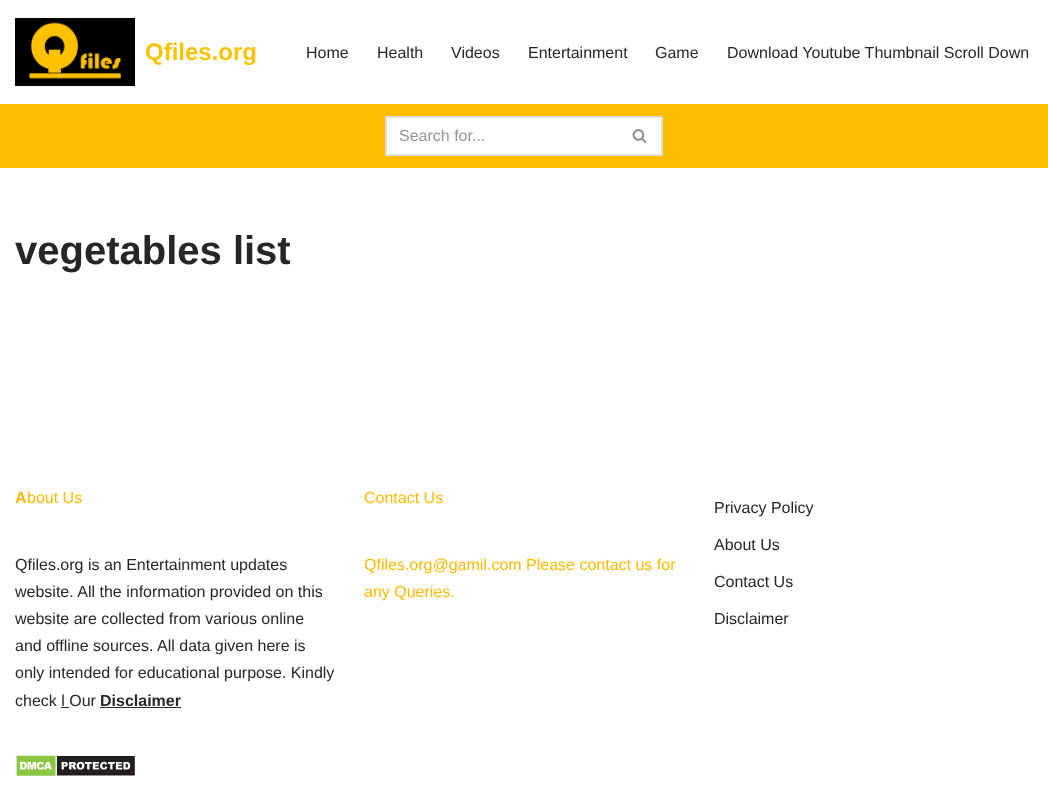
<?xml version="1.0" encoding="UTF-8"?>
<svg xmlns="http://www.w3.org/2000/svg" xmlns:xlink="http://www.w3.org/1999/xlink" width="1048" height="794">
  <rect width="100%" height="100%" fill="#ffffff" />
  <image x="15" y="18" width="120" height="68" xlink:href="image1.png" />
  <rect y="104" width="1048" height="64" fill="#ffbe00" />
  <path d="M 387 116 h 231 v 40 h -231 c -1 0 -2 -1 -2 -2 v -36 c 0 -1 1 -2 2 -2 z" fill="#ffffff" />
  <rect x="386" y="116" width="232" height="2" fill="#dddddd" />
  <rect x="386" y="154" width="232" height="2" fill="#dddddd" />
  <rect x="385" y="117" width="2" height="38" fill="#dddddd" />
  <path d="M 618 116 h 43 c 1 0 2 1 2 2 v 36 c 0 1 -1 2 -2 2 h -43 z" fill="#ffffff" />
  <rect x="618" y="116" width="44" height="2" fill="#dddddd" />
  <rect x="661" y="117" width="2" height="38" fill="#dddddd" />
  <rect x="618" y="154" width="44" height="2" fill="#dddddd" />
  <image x="632" y="129" width="15" height="14" xlink:href="image2.png" />
  <rect x="100" y="707" width="81" height="1" fill="#272626" />
  <rect x="61" y="707" width="8" height="1" fill="#272626" />
  <image x="16" y="755" width="119" height="21" xlink:href="image3.png" />
  <text x="145" y="60" style="font-family: Liberation Sans; font-size: 24px; font-weight: bold; fill: #f9c300">Qfiles.org</text>
  <text x="306" y="58" style="font-family: Liberation Sans; font-size: 16px; fill: #272626">Home</text>
  <text x="377" y="58" style="font-family: Liberation Sans; font-size: 16px; fill: #272626">Health</text>
  <text x="451" y="58" style="font-family: Liberation Sans; font-size: 16px; fill: #272626">Videos</text>
  <text x="528" y="58" style="font-family: Liberation Sans; font-size: 16px; fill: #272626">Entertainment</text>
  <text x="655" y="58" style="font-family: Liberation Sans; font-size: 16px; fill: #272626">Game</text>
  <text x="727" y="58" style="font-family: Liberation Sans; font-size: 16px; fill: #272626">Download Youtube Thumbnail Scroll Down</text>
  <text x="399" y="141" style="font-family: Liberation Sans; font-size: 16px; fill: #939393">Search for...</text>
  <text x="15" y="264" style="font-family: Liberation Sans; font-size: 40px; font-weight: bold; fill: #272626">vegetables list</text>
  <text x="15" y="503" style="font-family: Liberation Sans; font-size: 16px; font-weight: bold; fill: #fcb900">A</text>
  <text x="27" y="503" style="font-family: Liberation Sans; font-size: 16px; fill: #fcb900">bout Us</text>
  <text x="15" y="570" style="font-family: Liberation Sans; font-size: 16px; fill: #272626">Qfiles.org is an Entertainment updates</text>
  <text x="15" y="597" style="font-family: Liberation Sans; font-size: 16px; fill: #272626">website. All the information provided on this</text>
  <text x="15" y="624" style="font-family: Liberation Sans; font-size: 16px; fill: #272626">website are collected from various online</text>
  <text x="15" y="651" style="font-family: Liberation Sans; font-size: 16px; fill: #272626">and offline sources. All data given here is</text>
  <text x="15" y="678" style="font-family: Liberation Sans; font-size: 16px; fill: #272626">only intended for educational purpose. Kindly</text>
  <text x="15" y="706" style="font-family: Liberation Sans; font-size: 16px; fill: #272626">check l Our</text>
  <text x="100" y="706" style="font-family: Liberation Sans; font-size: 16px; font-weight: bold; fill: #272626">Disclaimer</text>
  <text x="364" y="503" style="font-family: Liberation Sans; font-size: 16px; fill: #fcb900">Contact Us</text>
  <text x="364" y="570" style="font-family: Liberation Sans; font-size: 16px; fill: #fcb900">Qfiles.org@gamil.com Please contact us for</text>
  <text x="364" y="597" style="font-family: Liberation Sans; font-size: 16px; fill: #fcb900">any Queries.</text>
  <text x="714" y="513" style="font-family: Liberation Sans; font-size: 16px; fill: #272626">Privacy Policy</text>
  <text x="714" y="550" style="font-family: Liberation Sans; font-size: 16px; fill: #272626">About Us</text>
  <text x="714" y="587" style="font-family: Liberation Sans; font-size: 16px; fill: #272626">Contact Us</text>
  <text x="714" y="624" style="font-family: Liberation Sans; font-size: 16px; fill: #272626">Disclaimer</text>
</svg>
